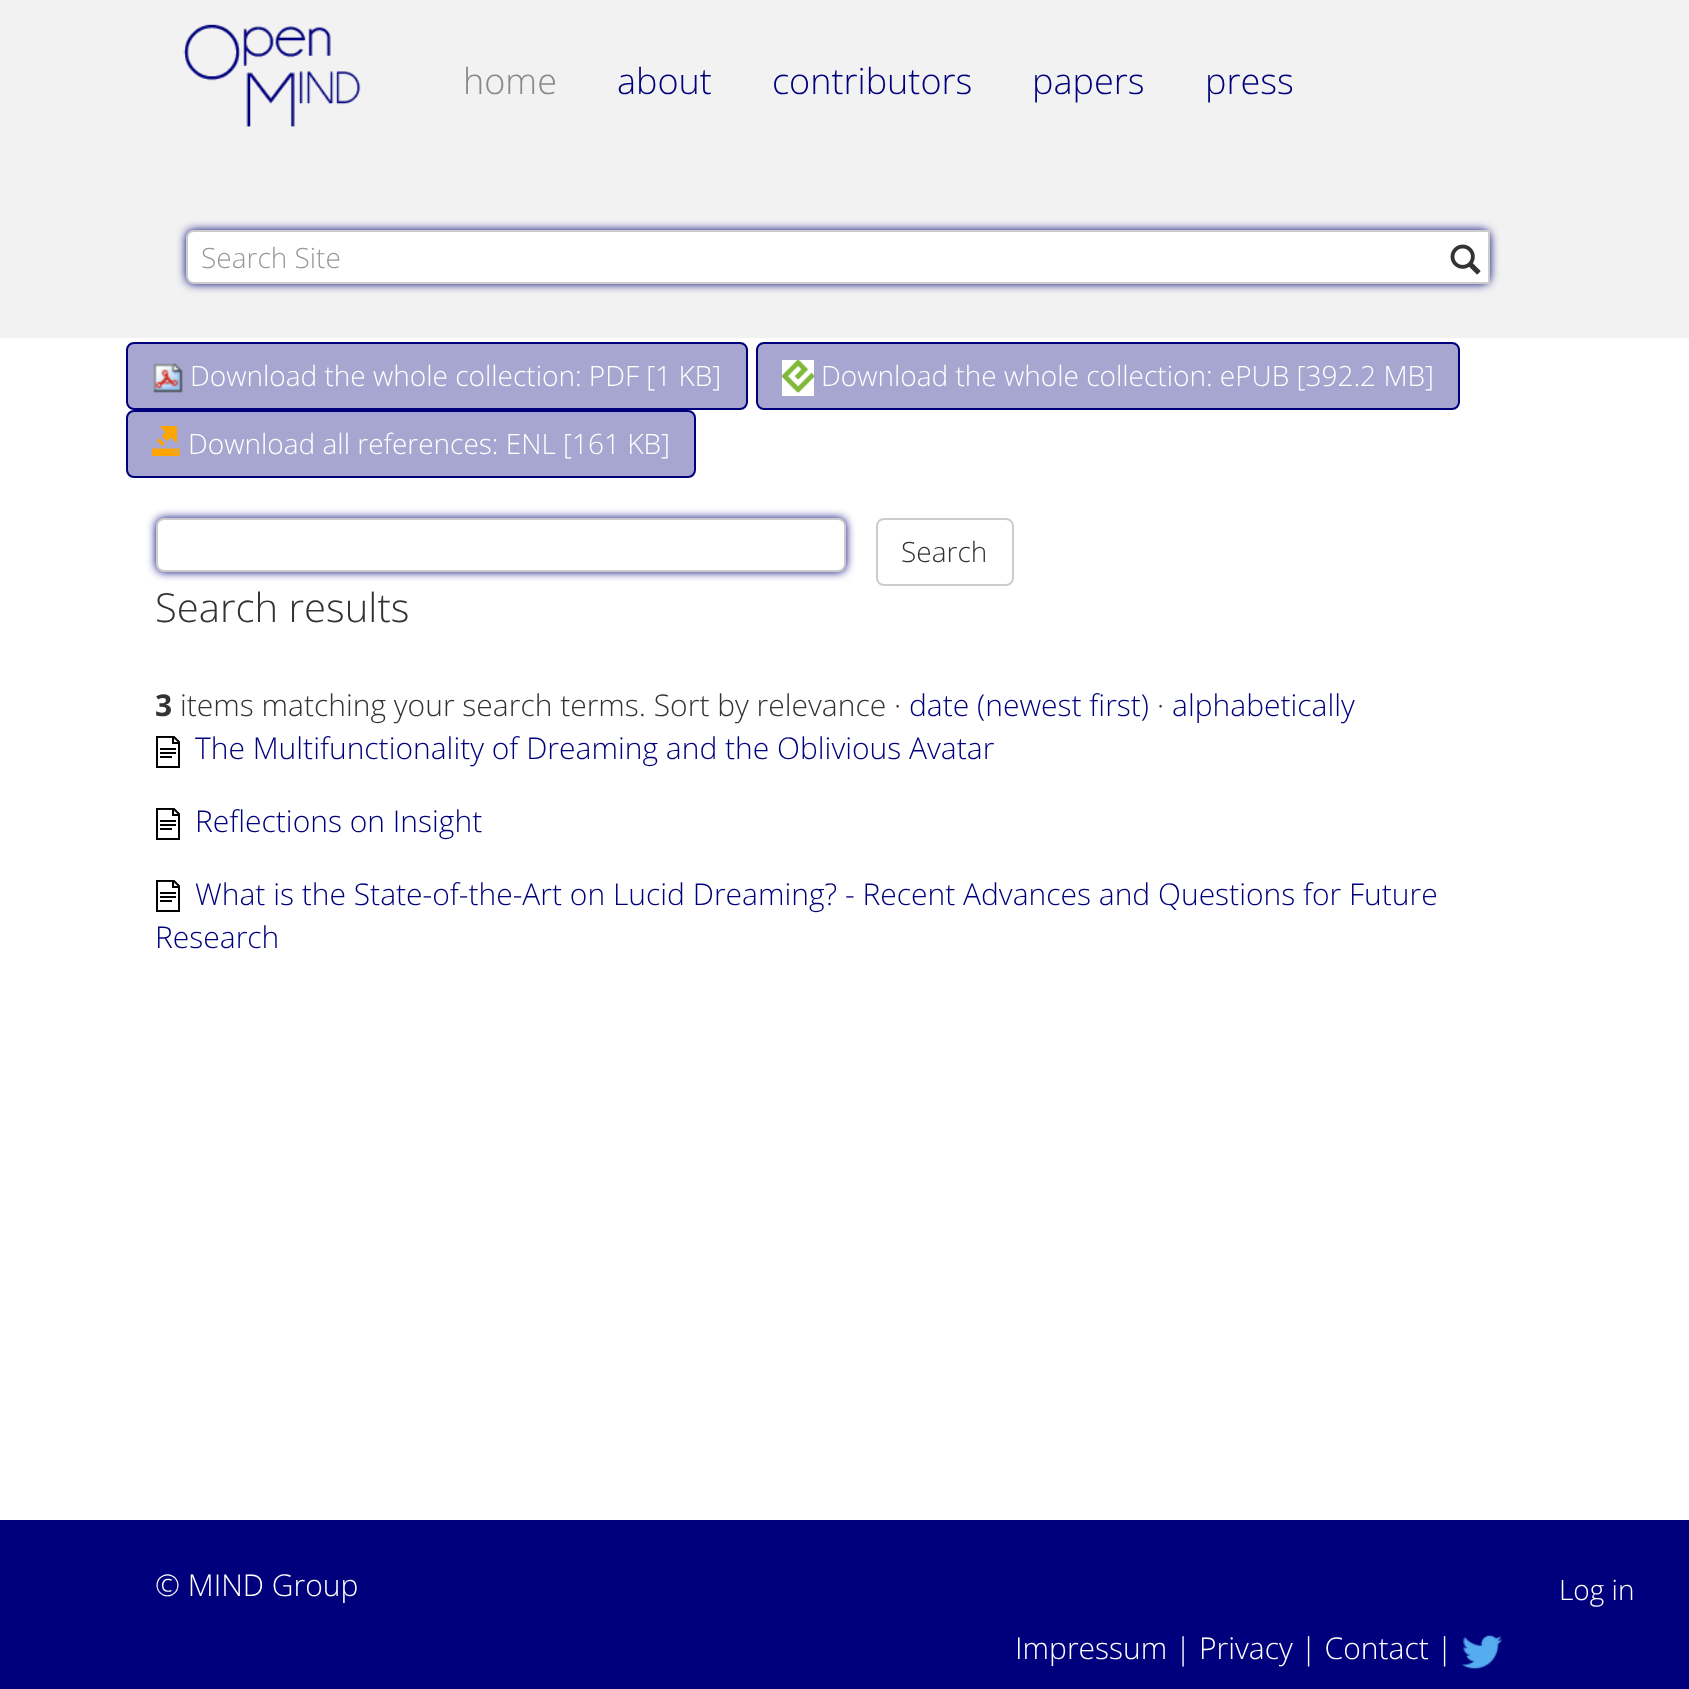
<?xml version="1.0" encoding="UTF-8"?>
<svg xmlns="http://www.w3.org/2000/svg" xmlns:xlink="http://www.w3.org/1999/xlink" width="1689" height="1689">
  <rect width="100%" height="100%" fill="#ffffff" />
  <rect width="1689" height="338" fill="#f2f2f2" />
  <image x="183" y="24" width="178" height="103" xlink:href="image1.png" />
  <rect x="186" y="230" width="1304" height="54" rx="8" fill="#00007c" filter="blur(5px)" />
  <path d="M 194 231 h 1295 v 52 h -1295 c -4 0 -7 -3 -7 -7 v -38 c 0 -4 3 -7 7 -7 z" fill="#ffffff" stroke="#cccccc" stroke-width="2" />
  <image x="1450" y="244" width="31" height="31" xlink:href="image2.png" />
  <rect x="127" y="343" width="620" height="66" rx="7" fill="#a6a6d1" stroke="#00007c" stroke-width="2" />
  <image x="153" y="363" width="30" height="30" xlink:href="image3.png" />
  <rect x="757" y="343" width="702" height="66" rx="7" fill="#a6a6d1" stroke="#00007c" stroke-width="2" />
  <image x="782" y="360" width="32" height="36" xlink:href="image4.png" />
  <rect x="127" y="411" width="568" height="66" rx="7" fill="#a6a6d1" stroke="#00007c" stroke-width="2" />
  <image x="152" y="426" width="28" height="30" xlink:href="image5.png" />
  <rect x="156" y="518" width="690" height="54" rx="8" fill="#00007c" filter="blur(5px)" />
  <rect x="157" y="519" width="688" height="52" rx="7" fill="#ffffff" stroke="#cccccc" stroke-width="2" />
  <rect x="877" y="519" width="136" height="66" rx="7" fill="none" stroke="#cccccc" stroke-width="2" />
  <image x="156" y="736" width="24" height="32" xlink:href="image6.png" />
  <image x="156" y="808" width="24" height="32" xlink:href="image6.png" />
  <image x="156" y="880" width="24" height="32" xlink:href="image6.png" />
  <rect y="1520" width="1689" height="169" fill="#00007c" />
  <image x="1462" y="1635" width="40" height="34" xlink:href="image7.png" />
  <text x="463" y="94" style="font-family: Open Sans; font-size: 36px; font-weight: 300; fill: #888888">home</text>
  <text x="617" y="94" style="font-family: Open Sans; font-size: 36px; font-weight: 300; fill: #00007c">about</text>
  <text x="772" y="94" style="font-family: Open Sans; font-size: 36px; font-weight: 300; fill: #00007c">contributors</text>
  <text x="1032" y="94" style="font-family: Open Sans; font-size: 36px; font-weight: 300; fill: #00007c">papers</text>
  <text x="1205" y="94" style="font-family: Open Sans; font-size: 36px; font-weight: 300; fill: #00007c">press</text>
  <text x="201" y="268" style="font-family: Open Sans; font-size: 28px; font-weight: 300; fill: #999999">Search Site</text>
  <text x="190" y="386" style="font-family: Open Sans; font-size: 28px; font-weight: 300; fill: #ffffff">Download the whole collection: PDF [1 KB]</text>
  <text x="821" y="386" style="font-family: Open Sans; font-size: 28px; font-weight: 300; fill: #ffffff">Download the whole collection: ePUB [392.2 MB]</text>
  <text x="188" y="454" style="font-family: Open Sans; font-size: 28px; font-weight: 300; fill: #ffffff">Download all references: ENL [161 KB]</text>
  <text x="901" y="562" style="font-family: Open Sans; font-size: 28px; font-weight: 300; fill: #333333">Search</text>
  <text x="155" y="622" style="font-family: Open Sans; font-size: 40px; font-weight: 300; fill: #333333">Search results</text>
  <text x="155" y="716" style="font-family: Open Sans; font-size: 30px; font-weight: bold; fill: #333333">3</text>
  <text x="180" y="716" style="font-family: Open Sans; font-size: 30px; font-weight: 300; fill: #333333">items matching your search terms. Sort by relevance ·</text>
  <text x="909" y="716" style="font-family: Open Sans; font-size: 30px; font-weight: 300; fill: #00007c">date (newest first)</text>
  <text x="1157" y="716" style="font-family: Open Sans; font-size: 30px; font-weight: 300; fill: #333333">·</text>
  <text x="1172" y="716" style="font-family: Open Sans; font-size: 30px; font-weight: 300; fill: #00007c">alphabetically</text>
  <text x="195" y="759" style="font-family: Open Sans; font-size: 30px; font-weight: 300; fill: #00007c">The Multifunctionality of Dreaming and the Oblivious Avatar</text>
  <text x="195" y="832" style="font-family: Open Sans; font-size: 30px; font-weight: 300; fill: #00007c">Reflections on Insight</text>
  <text x="195" y="905" style="font-family: Open Sans; font-size: 30px; font-weight: 300; fill: #00007c">What is the State-of-the-Art on Lucid Dreaming? - Recent Advances and Questions for Future</text>
  <text x="155" y="948" style="font-family: Open Sans; font-size: 30px; font-weight: 300; fill: #00007c">Research</text>
  <text x="155" y="1596" style="font-family: Open Sans; font-size: 30px; font-weight: 300; fill: #ffffff">© MIND Group</text>
  <text x="1015" y="1659" style="font-family: Open Sans; font-size: 30px; font-weight: 300; fill: #ffffff">Impressum | Privacy | Contact |</text>
  <text x="1559" y="1600" style="font-family: Open Sans; font-size: 28px; font-weight: 300; fill: #ffffff">Log in</text>
</svg>
